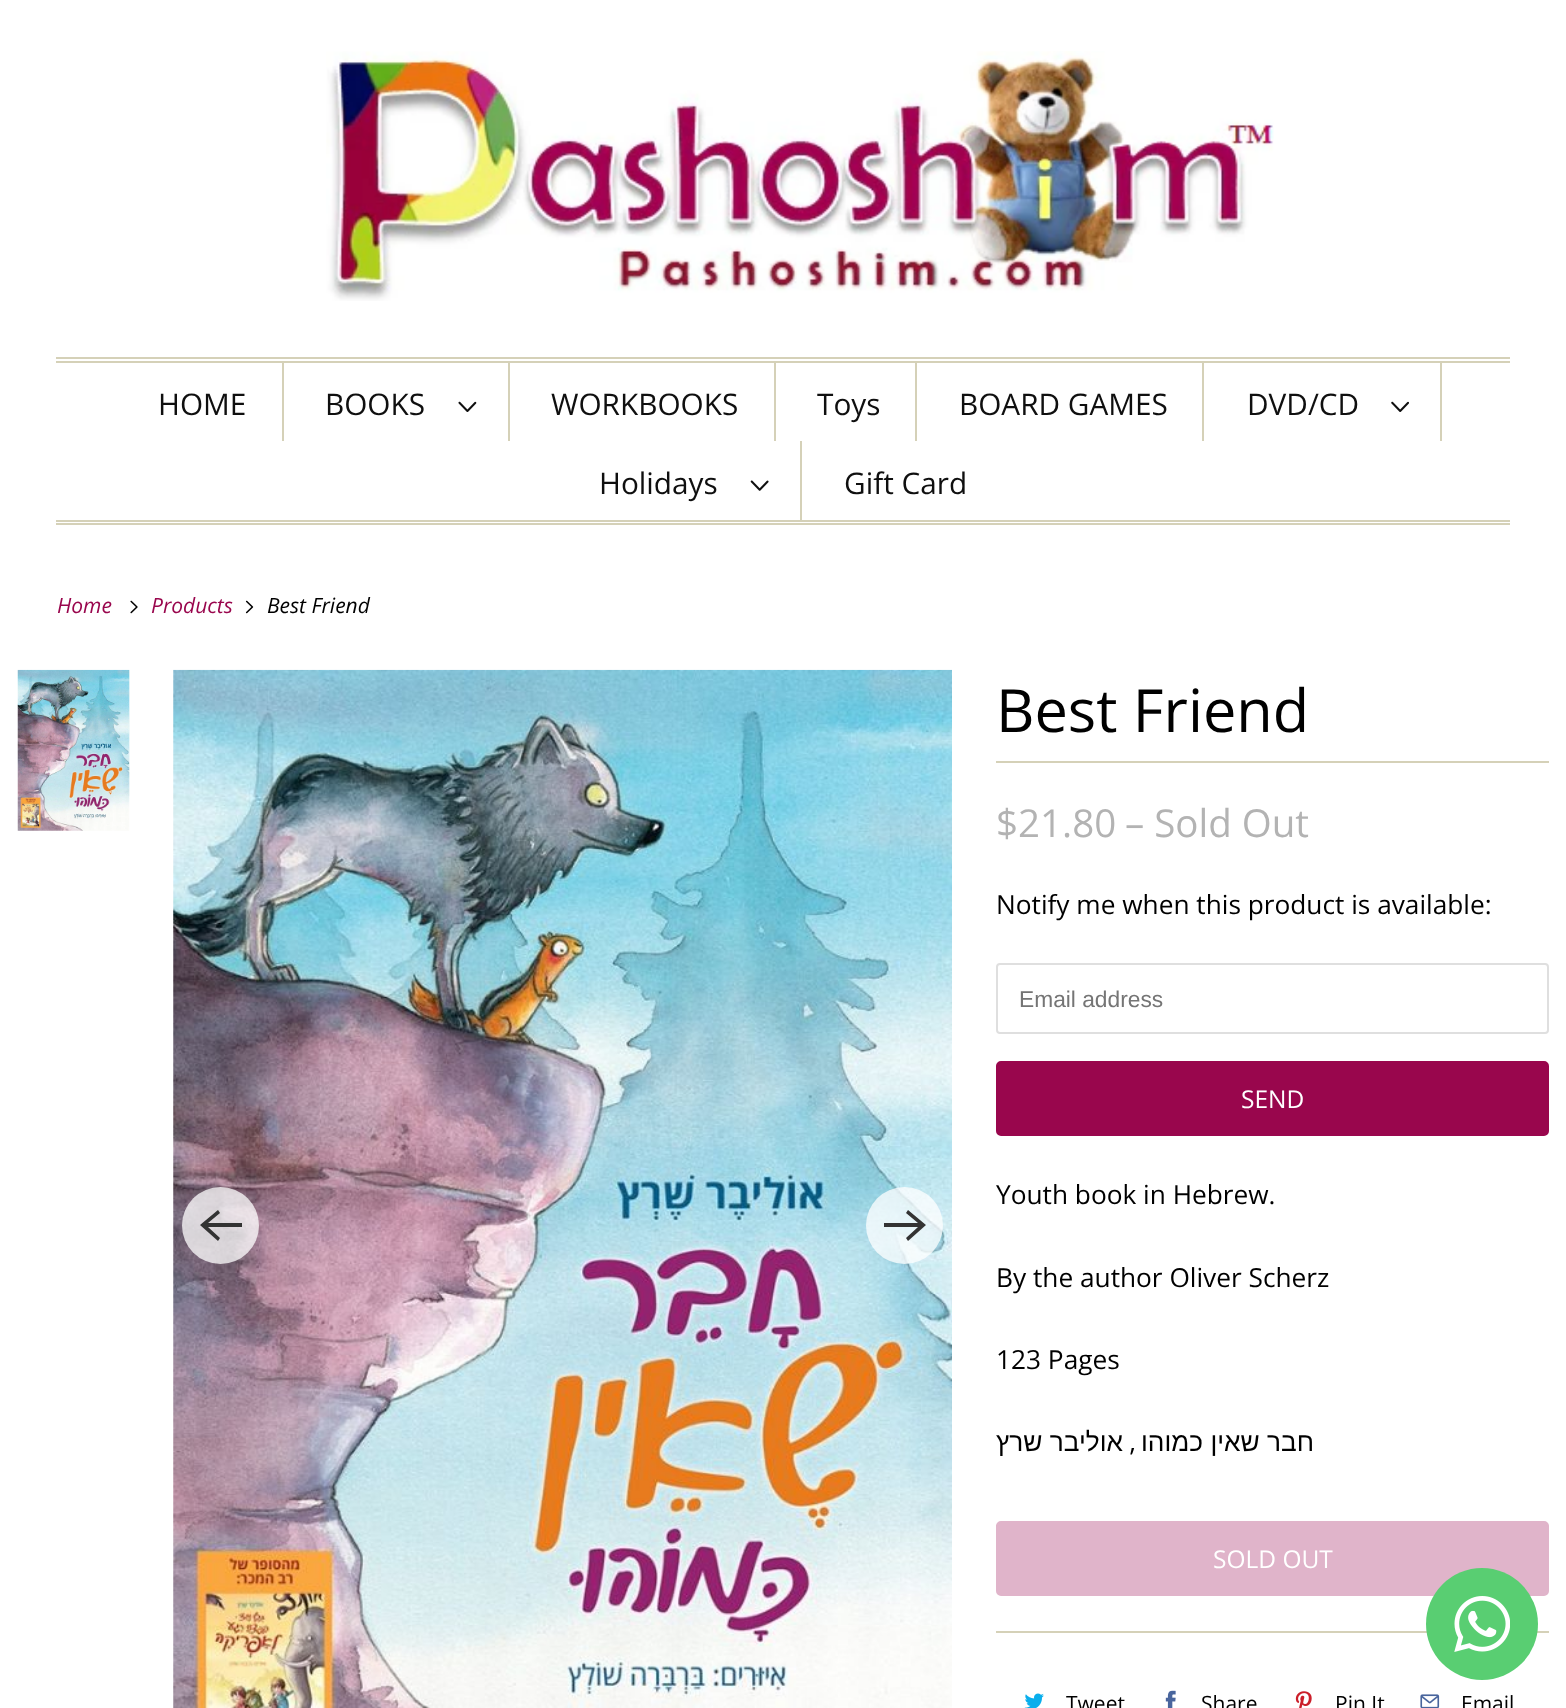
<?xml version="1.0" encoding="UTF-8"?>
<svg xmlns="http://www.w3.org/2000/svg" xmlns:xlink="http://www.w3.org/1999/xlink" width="1566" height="1708">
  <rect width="100%" height="100%" fill="#ffffff" />
  <image x="326" y="51" width="948" height="250" xlink:href="image1.png" />
  <rect x="56" y="357" width="1454" height="2" fill="#d5d1b8" />
  <rect x="56" y="361" width="1454" height="2" fill="#d5d1b8" />
  <rect x="56" y="520" width="1454" height="2" fill="#d5d1b8" />
  <rect x="56" y="523" width="1454" height="2" fill="#d5d1b8" />
  <rect x="282" y="362" width="2" height="79" fill="#d5d1b8" />
  <rect x="508" y="362" width="2" height="79" fill="#d5d1b8" />
  <image x="458" y="401" width="19" height="11" xlink:href="image2.png" />
  <rect x="774" y="362" width="2" height="79" fill="#d5d1b8" />
  <rect x="915" y="362" width="2" height="79" fill="#d5d1b8" />
  <rect x="1202" y="362" width="2" height="79" fill="#d5d1b8" />
  <rect x="1440" y="362" width="2" height="79" fill="#d5d1b8" />
  <image x="1391" y="401" width="18" height="11" xlink:href="image3.png" />
  <rect x="800" y="441" width="2" height="79" fill="#d5d1b8" />
  <image x="750" y="480" width="19" height="11" xlink:href="image4.png" />
  <image x="130" y="600" width="8" height="14" xlink:href="image5.png" />
  <image x="245" y="600" width="9" height="14" xlink:href="image6.png" />
  <image x="17" y="669" width="113" height="162" xlink:href="image7.png" />
  <image x="129" y="670" width="1" height="126" xlink:href="image8.png" />
  <image x="173" y="669" width="779" height="1039" xlink:href="image9.png" />
  <circle cx="220.5" cy="1225.5" r="38.5" fill="#ffffff" fill-opacity="0.75" />
  <path d="M 242 1223 h -34 l 12 -10 l -2 -3 l -18 15 l 18 16 l 2 -3 l -12 -11 h 34 z" fill="#333333" />
  <circle cx="904.5" cy="1225.5" r="38.5" fill="#ffffff" fill-opacity="0.75" />
  <path d="M 884 1227 h 34 l -12 11 l 2 3 l 18 -16 l -18 -15 l -2 3 l 12 10 h -34 z" fill="#333333" />
  <rect x="996" y="761" width="553" height="2" fill="#d5d1b8" />
  <rect x="997" y="964" width="551" height="69" rx="3" fill="none" stroke="#dfdfdf" stroke-width="2" />
  <rect x="997" y="1062" width="551" height="73" rx="4" fill="#99064d" stroke="#99064d" stroke-width="2" />
  <rect x="997" y="1522" width="551" height="73" rx="4" fill="#e0b4ca" stroke="#e0b4ca" stroke-width="2" />
  <rect x="996" y="1631" width="553" height="2" fill="#d5d1b8" />
  <image x="1024" y="1693" width="20" height="15" xlink:href="image10.png" />
  <image x="1165" y="1690" width="11" height="18" xlink:href="image11.png" />
  <image x="1295" y="1691" width="17" height="17" xlink:href="image12.png" />
  <image x="1420" y="1694" width="20" height="14" xlink:href="image13.png" />
  <circle cx="1482" cy="1624" r="56" fill="#59ce72" />
  <image x="1454" y="1596" width="56" height="56" xlink:href="image14.png" />
  <text x="158" y="415" style="font-family: Open Sans; font-size: 29.75px; fill: #0f0f0f">HOME</text>
  <text x="325" y="415" style="font-family: Open Sans; font-size: 29.75px; fill: #0f0f0f">BOOKS</text>
  <text x="551" y="415" style="font-family: Open Sans; font-size: 29.75px; fill: #0f0f0f">WORKBOOKS</text>
  <text x="817" y="415" style="font-family: Open Sans; font-size: 29.75px; fill: #0f0f0f">Toys</text>
  <text x="959" y="415" style="font-family: Open Sans; font-size: 29.75px; fill: #0f0f0f">BOARD GAMES</text>
  <text x="1247" y="415" style="font-family: Open Sans; font-size: 29.75px; fill: #0f0f0f">DVD/CD</text>
  <text x="599" y="494" style="font-family: Open Sans; font-size: 29.75px; fill: #0f0f0f">Holidays</text>
  <text x="844" y="494" style="font-family: Open Sans; font-size: 29.75px; fill: #0f0f0f">Gift Card</text>
  <text x="57" y="613" style="font-family: Open Sans; font-size: 21px; font-style: italic; fill: #99064d">Home</text>
  <text x="151" y="613" style="font-family: Open Sans; font-size: 21px; font-style: italic; fill: #99064d">Products</text>
  <text x="267" y="613" style="font-family: Open Sans; font-size: 21px; font-style: italic; fill: #000000">Best Friend</text>
  <text x="996" y="732" style="font-family: Open Sans; font-size: 59.5px; fill: #000000">Best Friend</text>
  <text x="996" y="837" style="font-family: Open Sans; font-size: 38.5px; fill: #b3b3b3">$21.80</text>
  <text x="1125" y="837" style="font-family: Open Sans; font-size: 38.5px; fill: #b3b3b3">– Sold Out</text>
  <text x="996" y="914" style="font-family: Open Sans; font-size: 26.25px; fill: #000000">Notify me when this product is available:</text>
  <text x="1019" y="1007" style="font-family: Liberation Sans; font-size: 22.75px; fill: #757575">Email address</text>
  <text x="1241" y="1108" style="font-family: Open Sans; font-size: 24.5px; fill: #ffffff">SEND</text>
  <text x="996" y="1204" style="font-family: Open Sans; font-size: 26.25px; fill: #000000">Youth book in Hebrew.</text>
  <text x="996" y="1287" style="font-family: Open Sans; font-size: 26.25px; fill: #000000">By the author Oliver Scherz</text>
  <text x="996" y="1369" style="font-family: Open Sans; font-size: 26.25px; fill: #000000">123 Pages</text>
  <text x="1123" y="1451" style="font-family: Liberation Sans; font-size: 26.25px; direction: rtl; fill: #000000">אוליבר שרץ</text>
  <text x="1136" y="1451" style="font-family: Open Sans; font-size: 26.25px; direction: rtl; fill: #000000">,</text>
  <text x="1314" y="1451" style="font-family: Liberation Sans; font-size: 26.25px; direction: rtl; fill: #000000">חבר שאין כמוהו</text>
  <text x="1213" y="1568" style="font-family: Open Sans; font-size: 24.5px; fill: #ffffff">SOLD OUT</text>
  <text x="1066" y="1711" style="font-family: Open Sans; font-size: 21px; fill: #000000">Tweet</text>
  <text x="1201" y="1711" style="font-family: Open Sans; font-size: 21px; fill: #000000">Share</text>
  <text x="1335" y="1711" style="font-family: Open Sans; font-size: 21px; fill: #000000">Pin It</text>
  <text x="1461" y="1711" style="font-family: Open Sans; font-size: 21px; fill: #000000">Email</text>
</svg>
